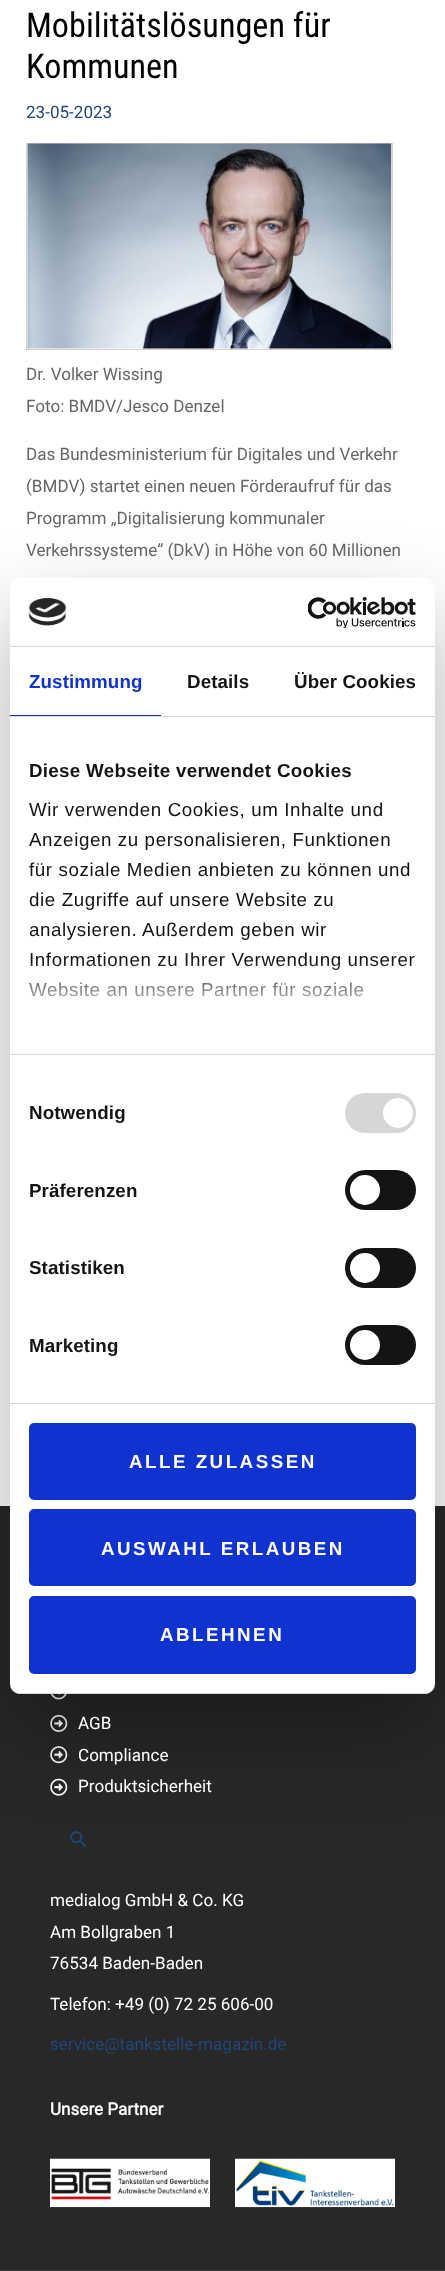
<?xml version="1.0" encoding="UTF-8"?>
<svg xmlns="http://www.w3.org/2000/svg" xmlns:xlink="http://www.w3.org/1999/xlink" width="445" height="2271">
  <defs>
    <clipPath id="clip1"><rect x="10" y="578" width="425" height="1116" rx="10" /></clipPath>
    <linearGradient id="g1" gradientUnits="userSpaceOnUse" x1="214" y1="1054" x2="214" y2="961"><stop offset="0" stop-color="#ffffff" /><stop offset="0.5" stop-color="#ffffff" stop-opacity="0.8" /><stop offset="1" stop-color="#ffffff" stop-opacity="0" /></linearGradient>
  </defs>
  <rect width="100%" height="100%" fill="#ffffff" />
  <rect x="26.5" y="143.5" width="366" height="206" fill="none" stroke="#d3d3d3" />
  <image x="27" y="143" width="365" height="206" xlink:href="image1.png" />
  <rect y="1506" width="445" height="764" fill="#282828" />
  <rect y="2270" width="445" height="1" fill="#33353a" />
  <image x="50" y="1694" width="17" height="6" xlink:href="image2.png" />
  <image x="50" y="1715" width="18" height="17" xlink:href="image3.png" />
  <image x="50" y="1746" width="18" height="18" xlink:href="image4.png" />
  <image x="50" y="1778" width="18" height="18" xlink:href="image5.png" />
  <image x="70" y="1831" width="17" height="17" xlink:href="image6.png" />
  <image x="50" y="2158" width="160" height="50" xlink:href="image7.png" />
  <image x="235" y="2158" width="160" height="50" xlink:href="image8.png" />
  <rect x="10" y="618" width="425" height="1116" rx="10" fill="#000000" fill-opacity="0.3" filter="blur(42.5px)" />
  <rect x="10" y="578" width="425" height="1116" rx="10" fill="#ffffff" />
  <rect x="10" y="646" width="425" height="1" fill="#d6d6d6" />
  <image x="28" y="598" width="39" height="28" xlink:href="image9.png" />
  <image x="308" y="596" width="108" height="32" xlink:href="image10.png" />
  <rect x="10" y="716" width="425" height="1" fill="#d6d6d6" />
  <rect x="10" y="715" width="151" height="1" fill="#1032cf" />
  <rect x="10" y="1054" width="425" height="1" fill="#d6d6d6" />
  <rect x="10" y="1403" width="425" height="1" fill="#d6d6d6" />
  <rect x="345" y="1093" width="71" height="40" rx="20" fill="#d6d6d6" />
  <circle cx="398" cy="1113" r="15" fill="#ffffff" />
  <rect x="345" y="1170" width="71" height="40" rx="20" fill="#141414" />
  <circle cx="365" cy="1190" r="15" fill="#ffffff" />
  <rect x="345" y="1248" width="71" height="40" rx="20" fill="#141414" />
  <circle cx="365" cy="1268" r="15" fill="#ffffff" />
  <rect x="345" y="1325" width="71" height="40" rx="20" fill="#141414" />
  <circle cx="365" cy="1345" r="15" fill="#ffffff" />
  <g clip-path="url(#clip1)">
    <rect x="10" y="1693" width="425" height="1" fill="#d6d6d6" />
  </g>
  <rect x="30.5" y="1424.5" width="384" height="74" rx="3.5" fill="#1032cf" stroke="#1032cf" stroke-width="3" />
  <rect x="30.5" y="1510.5" width="384" height="74" rx="3.5" fill="#1032cf" stroke="#1032cf" stroke-width="3" />
  <rect x="30.5" y="1597.5" width="384" height="75" rx="3.5" fill="#1032cf" stroke="#1032cf" stroke-width="3" />
  <text x="26" y="37" style="font-family: Roboto Condensed; font-size: 34.25px; fill: #000000">Mobilitätslösungen für</text>
  <text x="26" y="78" style="font-family: Roboto Condensed; font-size: 34.25px; fill: #000000">Kommunen</text>
  <text x="26" y="118" style="font-family: Roboto; font-size: 17.1px; fill: #21467a">23-05-2023</text>
  <text x="26" y="380" style="font-family: Roboto; font-size: 17.1px; fill: #666666">Dr. Volker Wissing</text>
  <text x="26" y="412" style="font-family: Roboto; font-size: 17.1px; fill: #666666">Foto: BMDV/Jesco Denzel</text>
  <text x="26" y="460" style="font-family: Roboto; font-size: 17.1px; fill: #666666">Das Bundesministerium für Digitales und Verkehr</text>
  <text x="26" y="492" style="font-family: Roboto; font-size: 17.1px; fill: #666666">(BMDV) startet einen neuen Förderaufruf für das</text>
  <text x="26" y="524" style="font-family: Roboto; font-size: 17.1px; fill: #666666">Programm „Digitalisierung kommunaler</text>
  <text x="26" y="556" style="font-family: Roboto; font-size: 17.1px; fill: #666666">Verkehrssysteme“ (DkV) in Höhe von 60 Millionen</text>
  <text x="78" y="1729" style="font-family: Roboto; font-size: 17.1px; fill: #ffffff">AGB</text>
  <text x="78" y="1761" style="font-family: Roboto; font-size: 17.1px; fill: #ffffff">Compliance</text>
  <text x="78" y="1792" style="font-family: Roboto; font-size: 17.1px; fill: #ffffff">Produktsicherheit</text>
  <text x="50" y="1906" style="font-family: Roboto; font-size: 17.1px; fill: #ffffff">medialog GmbH &amp; Co. KG</text>
  <text x="50" y="1938" style="font-family: Roboto; font-size: 17.1px; fill: #ffffff">Am Bollgraben 1</text>
  <text x="50" y="1969" style="font-family: Roboto; font-size: 17.1px; fill: #ffffff">76534 Baden-Baden</text>
  <text x="50" y="2010" style="font-family: Roboto; font-size: 17.1px; fill: #ffffff">Telefon: +49 (0) 72 25 606-00</text>
  <text x="50" y="2050" style="font-family: Roboto; font-size: 17.1px; fill: #21467a">service@tankstelle-magazin.de</text>
  <text x="50" y="2115" style="font-family: Roboto; font-size: 17.1px; font-weight: bold; fill: #ffffff">Unsere Partner</text>
  <text x="29" y="688" style="font-family: Liberation Sans; font-size: 18.75px; font-weight: bold; letter-spacing: 0.1px; fill: #1032cf">Zustimmung</text>
  <text x="187" y="688" style="font-family: Liberation Sans; font-size: 18.75px; font-weight: bold; letter-spacing: 0.1px; fill: #141414">Details</text>
  <text x="294" y="688" style="font-family: Liberation Sans; font-size: 18.75px; font-weight: bold; letter-spacing: 0.1px; fill: #141414">Über Cookies</text>
  <text x="29" y="777" style="font-family: Liberation Sans; font-size: 18.75px; font-weight: bold; letter-spacing: 0.3px; fill: #141414">Diese Webseite verwendet Cookies</text>
  <text x="29" y="816" style="font-family: Liberation Sans; font-size: 18.75px; letter-spacing: 0.6px; fill: #141414">Wir verwenden Cookies, um Inhalte und</text>
  <text x="29" y="846" style="font-family: Liberation Sans; font-size: 18.75px; letter-spacing: 0.6px; fill: #141414">Anzeigen zu personalisieren, Funktionen</text>
  <text x="29" y="876" style="font-family: Liberation Sans; font-size: 18.75px; letter-spacing: 0.6px; fill: #141414">für soziale Medien anbieten zu können und</text>
  <text x="29" y="906" style="font-family: Liberation Sans; font-size: 18.75px; letter-spacing: 0.6px; fill: #141414">die Zugriffe auf unsere Website zu</text>
  <text x="29" y="936" style="font-family: Liberation Sans; font-size: 18.75px; letter-spacing: 0.6px; fill: #141414">analysieren. Außerdem geben wir</text>
  <text x="29" y="966" style="font-family: Liberation Sans; font-size: 18.75px; letter-spacing: 0.6px; fill: #141414">Informationen zu Ihrer Verwendung unserer</text>
  <text x="29" y="996" style="font-family: Liberation Sans; font-size: 18.75px; letter-spacing: 0.6px; fill: #141414">Website an unsere Partner für soziale</text>
  <rect x="28" y="962" width="384" height="35" fill="url(#g1)" />
  <text x="29" y="1119" style="font-family: Liberation Sans; font-size: 18.75px; font-weight: bold; letter-spacing: 0.1px; fill: #141414">Notwendig</text>
  <text x="29" y="1197" style="font-family: Liberation Sans; font-size: 18.75px; font-weight: bold; letter-spacing: 0.1px; fill: #141414">Präferenzen</text>
  <text x="29" y="1274" style="font-family: Liberation Sans; font-size: 18.75px; font-weight: bold; letter-spacing: 0.1px; fill: #141414">Statistiken</text>
  <text x="29" y="1352" style="font-family: Liberation Sans; font-size: 18.75px; font-weight: bold; letter-spacing: 0.1px; fill: #141414">Marketing</text>
  <text x="129" y="1468" style="font-family: Liberation Sans; font-size: 18.75px; font-weight: bold; letter-spacing: 2.5px; fill: #ffffff">ALLE ZULASSEN</text>
  <text x="101" y="1555" style="font-family: Liberation Sans; font-size: 18.75px; font-weight: bold; letter-spacing: 2.5px; fill: #ffffff">AUSWAHL ERLAUBEN</text>
  <text x="160" y="1641" style="font-family: Liberation Sans; font-size: 18.75px; font-weight: bold; letter-spacing: 2.5px; fill: #ffffff">ABLEHNEN</text>
</svg>
